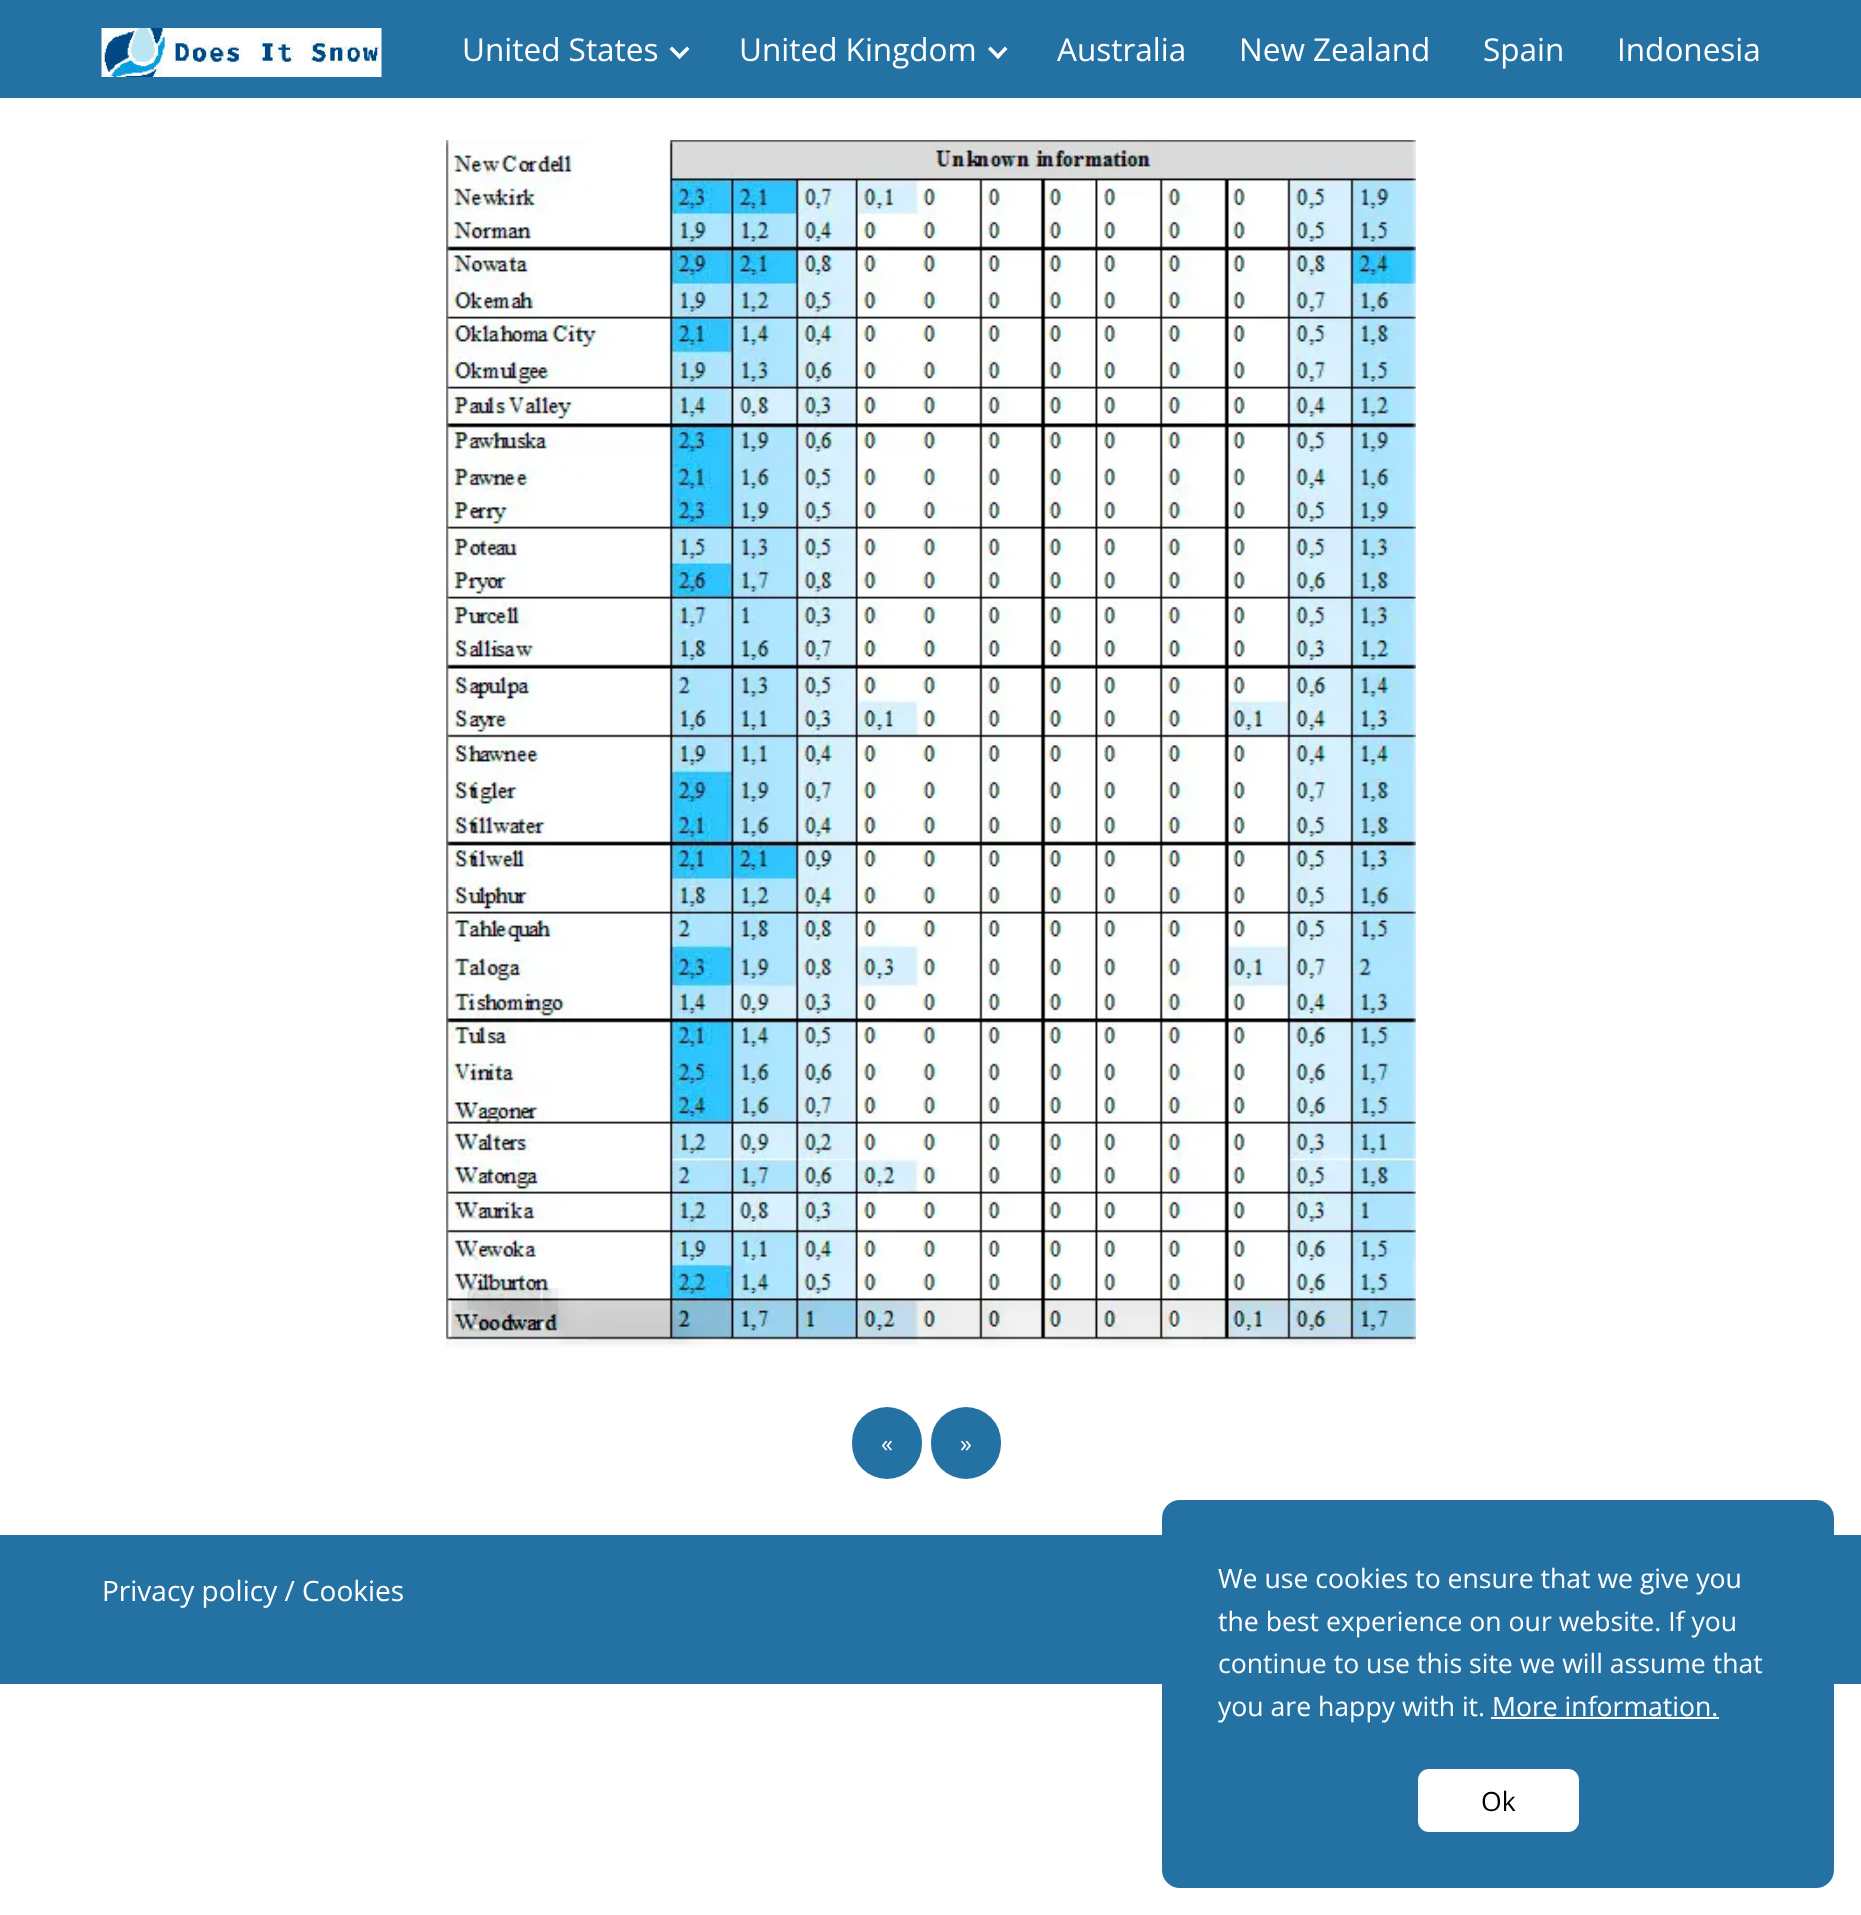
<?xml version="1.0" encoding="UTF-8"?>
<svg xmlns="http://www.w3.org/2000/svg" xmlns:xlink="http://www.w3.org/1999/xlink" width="1861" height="1915">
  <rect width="100%" height="100%" fill="#ffffff" />
  <rect width="1861" height="98" fill="#2471a3" />
  <image x="101" y="28" width="281" height="49" xlink:href="image1.png" />
  <path d="M 687 46.5 l 2.5 2.5 l -10 10 l -2.5 -2.5 z" fill="#ffffff" />
  <path d="M 672 46.5 l 10 10 l -2.5 2.5 l -10 -10 z" fill="#ffffff" />
  <path d="M 1005 46.5 l 2.5 2.5 l -9.5 10 l -2.5 -2.5 z" fill="#ffffff" />
  <path d="M 990.5 46.5 l 10 10 l -2.5 2.5 l -10 -10 z" fill="#ffffff" />
  <image x="446" y="140" width="970" height="1208" xlink:href="image2.png" />
  <rect x="852" y="1407" width="70" height="72" rx="35" fill="#2471a3" />
  <rect x="931" y="1407" width="70" height="72" rx="35" fill="#2471a3" />
  <rect y="1535" width="1861" height="149" fill="#2471a3" />
  <rect x="1162" y="1500" width="672" height="388" rx="18" fill="#2471a3" />
  <rect x="1491" y="1717" width="228" height="2" fill="#ffffff" />
  <rect x="1418" y="1769" width="161" height="63" rx="11" fill="#ffffff" />
  <text x="462" y="61" style="font-family: Open Sans; font-size: 31.5px; fill: #ffffff">United States</text>
  <text x="739" y="61" style="font-family: Open Sans; font-size: 31.5px; fill: #ffffff">United Kingdom</text>
  <text x="1057" y="61" style="font-family: Open Sans; font-size: 31.5px; fill: #ffffff">Australia</text>
  <text x="1239" y="61" style="font-family: Open Sans; font-size: 31.5px; fill: #ffffff">New Zealand</text>
  <text x="1483" y="61" style="font-family: Open Sans; font-size: 31.5px; fill: #ffffff">Spain</text>
  <text x="1617" y="61" style="font-family: Open Sans; font-size: 31.5px; fill: #ffffff">Indonesia</text>
  <text x="881" y="1452" style="font-family: Open Sans; font-size: 24px; fill: #ffffff">«</text>
  <text x="960" y="1452" style="font-family: Open Sans; font-size: 24px; fill: #ffffff">»</text>
  <text x="102" y="1601" style="font-family: Open Sans; font-size: 28px; fill: #ffffff">Privacy policy / Cookies</text>
  <text x="1218" y="1588" style="font-family: Open Sans; font-size: 26.6px; fill: #ffffff">We use cookies to ensure that we give you</text>
  <text x="1218" y="1631" style="font-family: Open Sans; font-size: 26.6px; fill: #ffffff">the best experience on our website. If you</text>
  <text x="1218" y="1673" style="font-family: Open Sans; font-size: 26.6px; fill: #ffffff">continue to use this site we will assume that</text>
  <text x="1218" y="1716" style="font-family: Open Sans; font-size: 26.6px; fill: #ffffff">you are happy with it. More information.</text>
  <text x="1481" y="1811" style="font-family: Open Sans; font-size: 26.6px; fill: #000000">Ok</text>
</svg>
